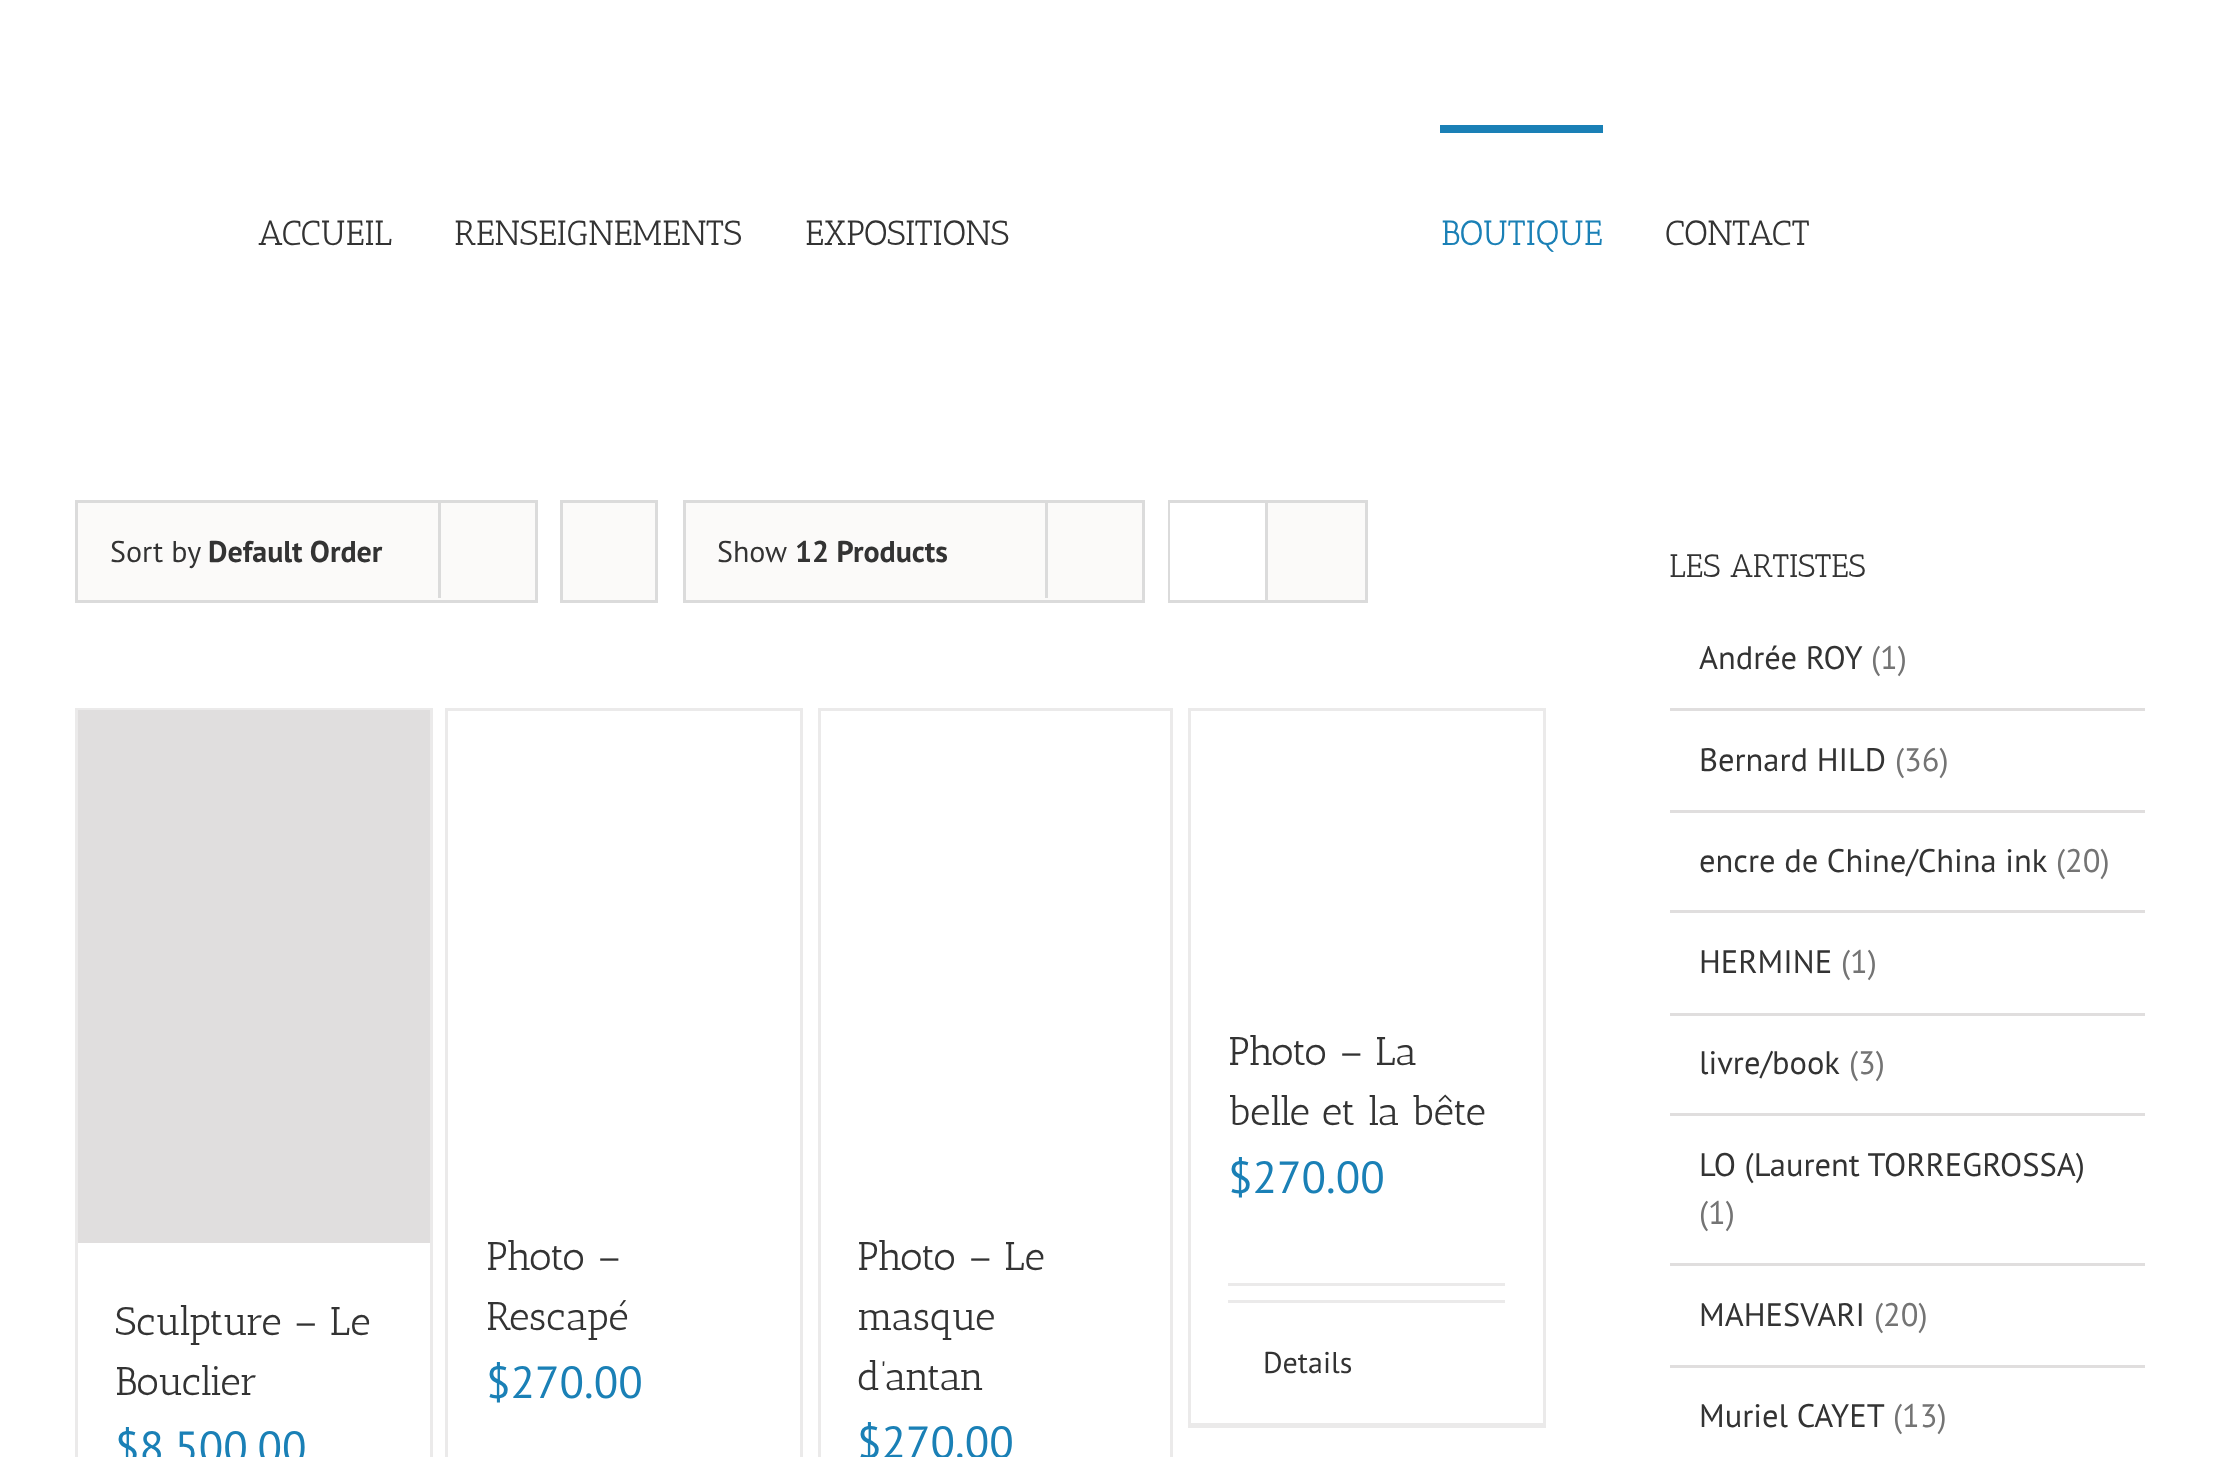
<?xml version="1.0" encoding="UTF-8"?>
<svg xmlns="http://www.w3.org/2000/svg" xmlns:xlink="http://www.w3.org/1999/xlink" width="2218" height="1457">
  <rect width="100%" height="100%" fill="#ffffff" />
  <rect x="1440" y="125" width="163" height="8" fill="#1a80b6" />
  <rect x="76.5" y="501.5" width="460" height="100" fill="#fbfaf9" stroke="#dbdbdb" stroke-width="3" />
  <rect x="438" y="500" width="3" height="98" fill="#dbdbdb" />
  <rect x="561.5" y="501.5" width="95" height="100" fill="#fbfaf9" stroke="#dbdbdb" stroke-width="3" />
  <rect x="684.5" y="501.5" width="459" height="100" fill="#fbfaf9" stroke="#dbdbdb" stroke-width="3" />
  <rect x="1045" y="500" width="3" height="98" fill="#dbdbdb" />
  <rect x="1169.5" y="501.5" width="197" height="100" fill="none" stroke="#dbdbdb" stroke-width="3" />
  <rect x="1170" y="503" width="1" height="97" fill="#ffffff" />
  <rect x="1265" y="503" width="3" height="97" fill="#dbdbdb" />
  <rect x="1268" y="503" width="97" height="97" fill="#fbfaf9" />
  <rect x="75" y="708" width="358" height="2" fill="#ebeaea" />
  <rect x="430" y="708" width="3" height="749" fill="#ebeaea" />
  <rect x="75" y="708" width="3" height="749" fill="#ebeaea" />
  <rect x="78" y="710" width="352" height="533" fill="#e0dede" />
  <rect x="445" y="708" width="358" height="3" fill="#ebeaea" />
  <rect x="800" y="708" width="3" height="749" fill="#ebeaea" />
  <rect x="445" y="708" width="3" height="749" fill="#ebeaea" />
  <rect x="818" y="708" width="355" height="3" fill="#ebeaea" />
  <rect x="1170" y="708" width="3" height="749" fill="#ebeaea" />
  <rect x="818" y="708" width="3" height="749" fill="#ebeaea" />
  <rect x="1188" y="708" width="357" height="3" fill="#ebeaea" />
  <rect x="1543" y="708" width="3" height="720" fill="#ebeaea" />
  <rect x="1188" y="1423" width="357" height="5" fill="#ebeaea" />
  <rect x="1188" y="708" width="3" height="720" fill="#ebeaea" />
  <rect x="1228" y="1283" width="277" height="3" fill="#ebeaea" />
  <rect x="1228" y="1300" width="277" height="3" fill="#ebeaea" />
  <rect x="1670" y="708" width="475" height="3" fill="#e0dede" />
  <rect x="1670" y="810" width="475" height="3" fill="#e0dede" />
  <rect x="1670" y="910" width="475" height="3" fill="#e0dede" />
  <rect x="1670" y="1013" width="475" height="3" fill="#e0dede" />
  <rect x="1670" y="1113" width="475" height="3" fill="#e0dede" />
  <rect x="1670" y="1263" width="475" height="3" fill="#e0dede" />
  <rect x="1670" y="1365" width="475" height="3" fill="#e0dede" />
  <text x="258" y="245" style="font-family: Antic Slab; font-size: 35px; fill: #333333">ACCUEIL</text>
  <text x="454" y="245" style="font-family: Antic Slab; font-size: 35px; fill: #333333">RENSEIGNEMENTS</text>
  <text x="805" y="245" style="font-family: Antic Slab; font-size: 35px; fill: #333333">EXPOSITIONS</text>
  <text x="1441" y="245" style="font-family: Antic Slab; font-size: 35px; fill: #1a80b6">BOUTIQUE</text>
  <text x="1665" y="245" style="font-family: Antic Slab; font-size: 35px; fill: #333333">CONTACT</text>
  <text x="110" y="562" style="font-family: PT Sans; font-size: 30px; fill: #333333">Sort by</text>
  <text x="208" y="562" style="font-family: PT Sans; font-size: 30px; font-weight: bold; fill: #333333">Default Order</text>
  <text x="717" y="562" style="font-family: PT Sans; font-size: 30px; fill: #333333">Show</text>
  <text x="795" y="562" style="font-family: PT Sans; font-size: 30px; font-weight: bold; fill: #333333">12 Products</text>
  <text x="115" y="1335" style="font-family: Antic Slab; font-size: 40px; fill: #333333">Sculpture – Le</text>
  <text x="115" y="1395" style="font-family: Antic Slab; font-size: 40px; fill: #333333">Bouclier</text>
  <text x="115" y="1463" style="font-family: PT Sans; font-size: 45px; fill: #1a80b6">$8,500.00</text>
  <text x="486" y="1270" style="font-family: Antic Slab; font-size: 40px; fill: #333333">Photo –</text>
  <text x="486" y="1330" style="font-family: Antic Slab; font-size: 40px; fill: #333333">Rescapé</text>
  <text x="486" y="1398" style="font-family: PT Sans; font-size: 45px; fill: #1a80b6">$270.00</text>
  <text x="857" y="1270" style="font-family: Antic Slab; font-size: 40px; fill: #333333">Photo – Le</text>
  <text x="857" y="1330" style="font-family: Antic Slab; font-size: 40px; fill: #333333">masque</text>
  <text x="857" y="1390" style="font-family: Antic Slab; font-size: 40px; fill: #333333">d’antan</text>
  <text x="857" y="1458" style="font-family: PT Sans; font-size: 45px; fill: #1a80b6">$270.00</text>
  <text x="1228" y="1065" style="font-family: Antic Slab; font-size: 40px; fill: #333333">Photo – La</text>
  <text x="1228" y="1125" style="font-family: Antic Slab; font-size: 40px; fill: #333333">belle et la bête</text>
  <text x="1228" y="1193" style="font-family: PT Sans; font-size: 45px; fill: #1a80b6">$270.00</text>
  <text x="1263" y="1373" style="font-family: PT Sans; font-size: 30px; fill: #333333">Details</text>
  <text x="1669" y="577" style="font-family: Antic Slab; font-size: 32.5px; fill: #333333">LES ARTISTES</text>
  <text x="1699" y="669" style="font-family: PT Sans; font-size: 32.5px; fill: #333333">Andrée ROY</text>
  <text x="1871" y="669" style="font-family: PT Sans; font-size: 32.5px; fill: #747474">(1)</text>
  <text x="1699" y="771" style="font-family: PT Sans; font-size: 32.5px; fill: #333333">Bernard HILD</text>
  <text x="1895" y="771" style="font-family: PT Sans; font-size: 32.5px; fill: #747474">(36)</text>
  <text x="1699" y="872" style="font-family: PT Sans; font-size: 32.5px; fill: #333333">encre de Chine/China ink</text>
  <text x="2056" y="872" style="font-family: PT Sans; font-size: 32.5px; fill: #747474">(20)</text>
  <text x="1699" y="973" style="font-family: PT Sans; font-size: 32.5px; fill: #333333">HERMINE</text>
  <text x="1841" y="973" style="font-family: PT Sans; font-size: 32.5px; fill: #747474">(1)</text>
  <text x="1699" y="1074" style="font-family: PT Sans; font-size: 32.5px; fill: #333333">livre/book</text>
  <text x="1849" y="1074" style="font-family: PT Sans; font-size: 32.5px; fill: #747474">(3)</text>
  <text x="1699" y="1176" style="font-family: PT Sans; font-size: 32.5px; fill: #333333">LO (Laurent TORREGROSSA)</text>
  <text x="1699" y="1224" style="font-family: PT Sans; font-size: 32.5px; fill: #747474">(1)</text>
  <text x="1699" y="1326" style="font-family: PT Sans; font-size: 32.5px; fill: #333333">MAHESVARI</text>
  <text x="1874" y="1326" style="font-family: PT Sans; font-size: 32.5px; fill: #747474">(20)</text>
  <text x="1699" y="1427" style="font-family: PT Sans; font-size: 32.5px; fill: #333333">Muriel CAYET</text>
  <text x="1893" y="1427" style="font-family: PT Sans; font-size: 32.5px; fill: #747474">(13)</text>
</svg>
